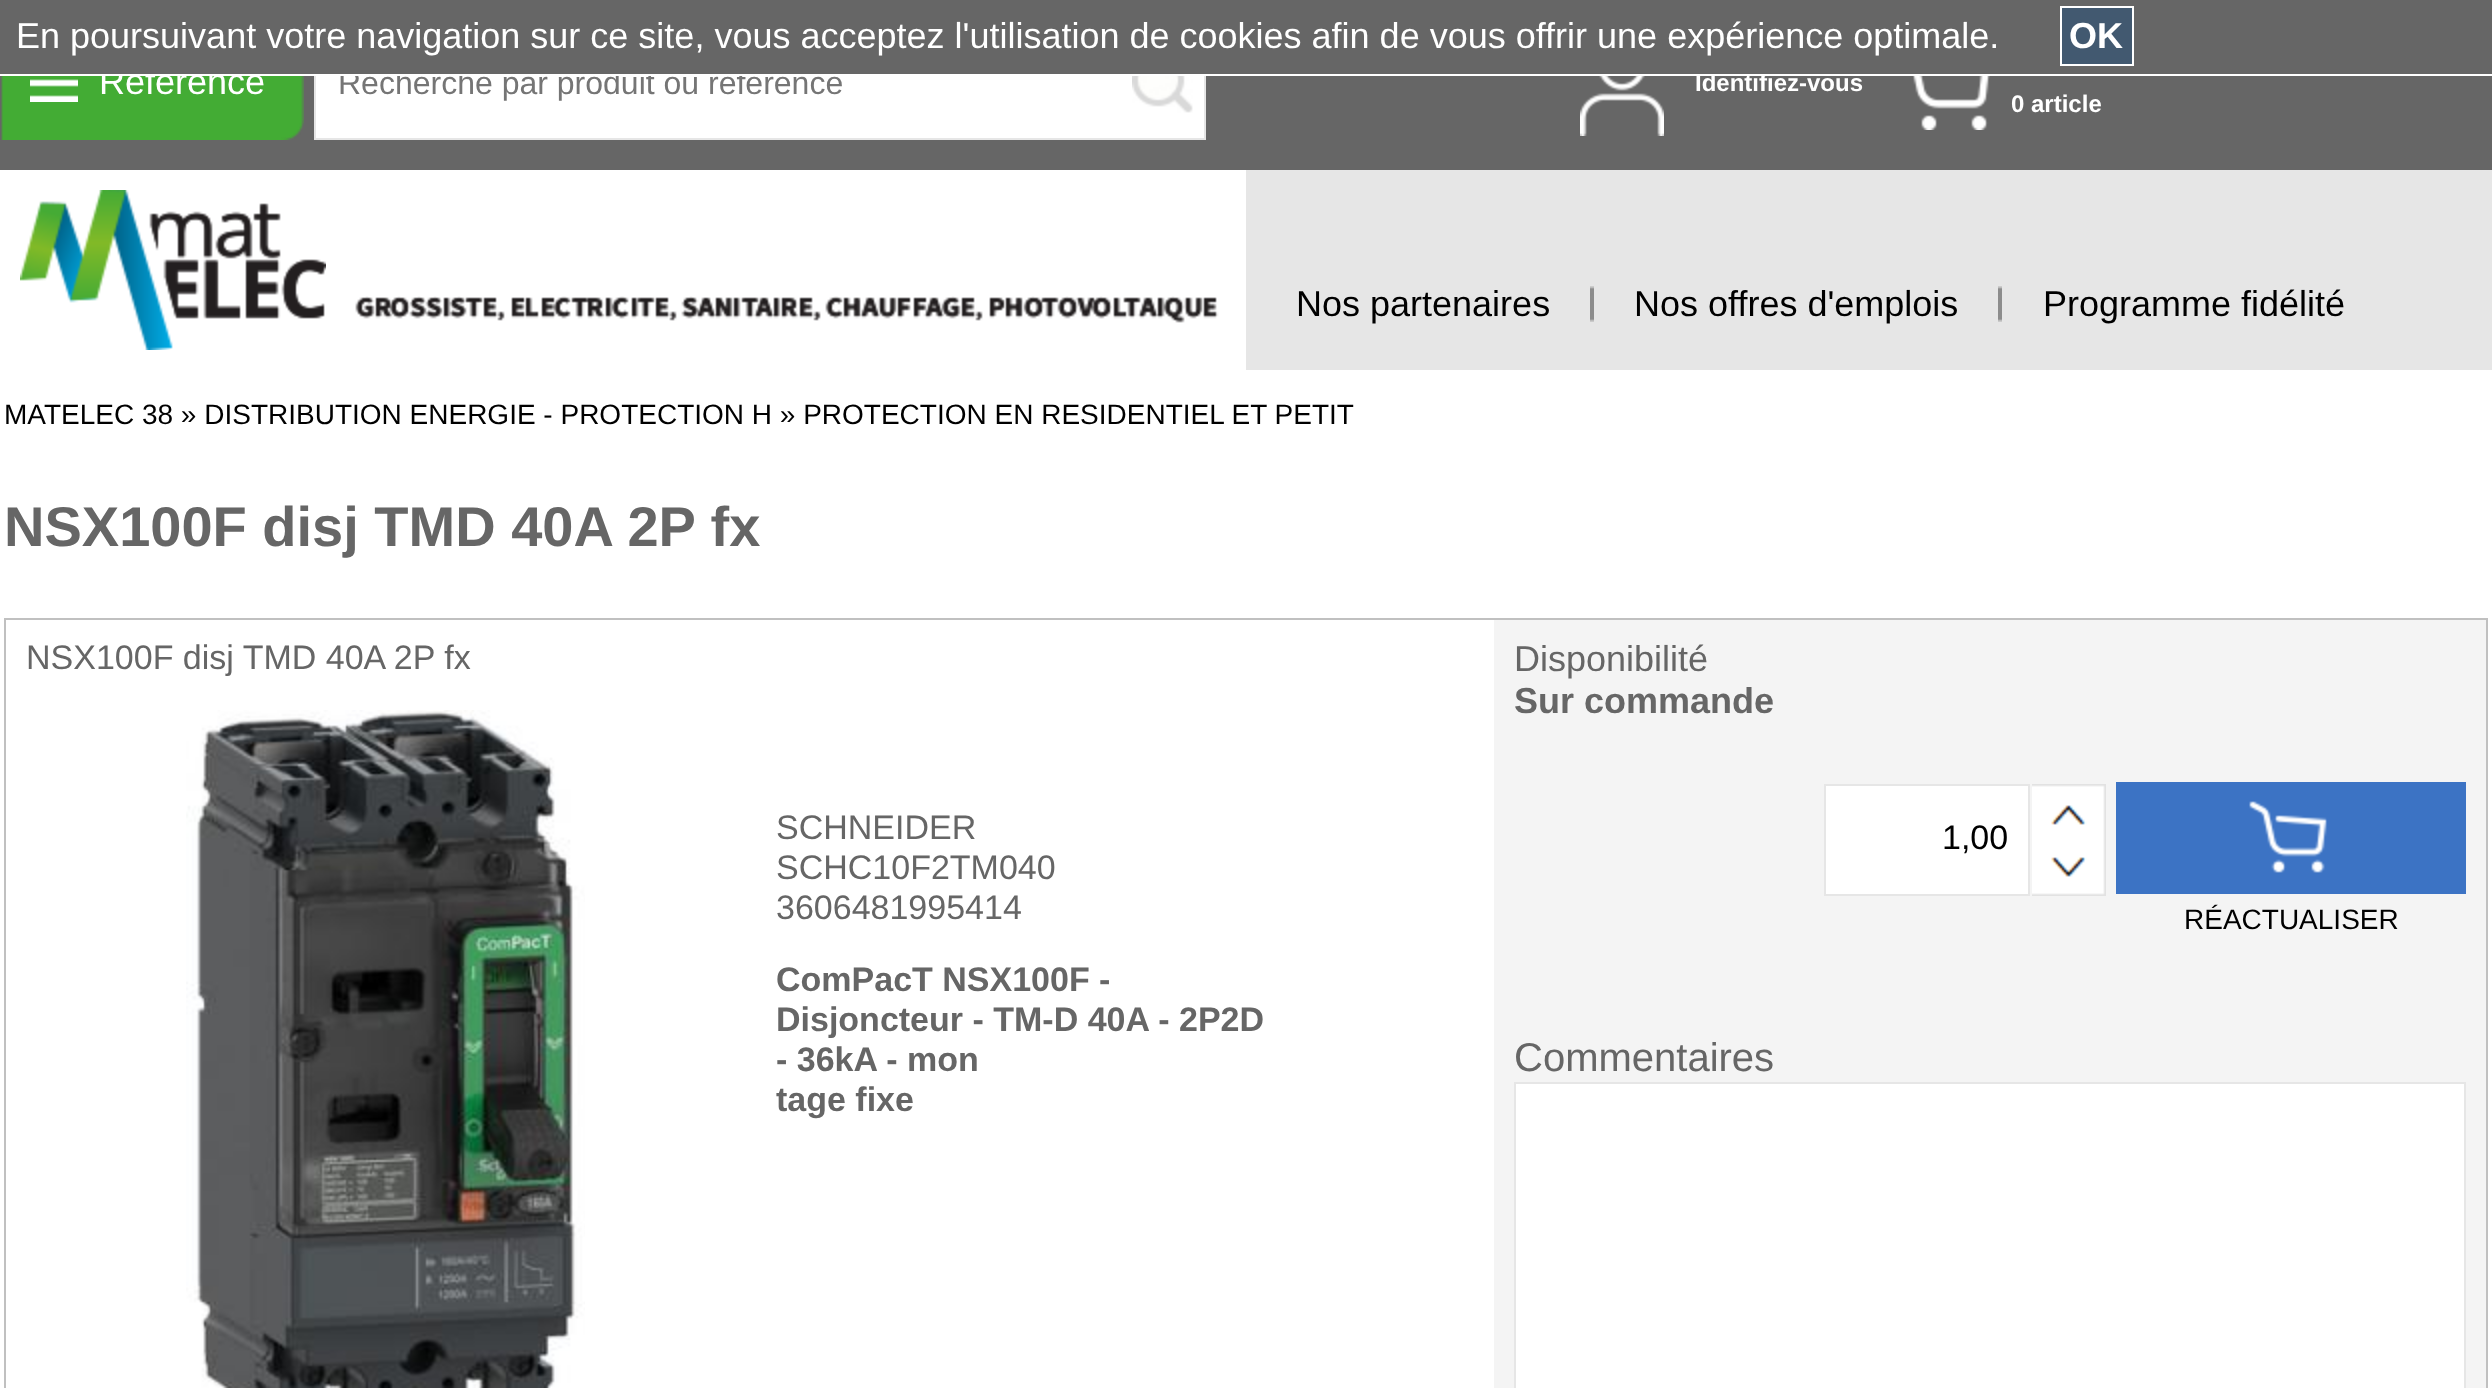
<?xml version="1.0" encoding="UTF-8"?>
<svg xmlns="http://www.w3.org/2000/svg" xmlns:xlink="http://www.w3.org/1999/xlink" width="2492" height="1388">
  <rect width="100%" height="100%" fill="#ffffff" />
  <rect y="76" width="2492" height="94" fill="#666666" />
  <image x="1" y="76" width="303" height="64" xlink:href="image1.png" />
  <image x="30" y="79" width="48" height="23" xlink:href="image2.png" />
  <rect x="316" y="76" width="888" height="62" fill="#ffffff" />
  <rect x="1204" y="76" width="2" height="64" fill="#e6e6e6" />
  <rect x="314" y="138" width="892" height="2" fill="#e6e6e6" />
  <rect x="314" y="76" width="2" height="64" fill="#e6e6e6" />
  <image x="1132" y="76" width="61" height="37" xlink:href="image3.png" />
  <image x="1580" y="76" width="84" height="60" xlink:href="image4.png" />
  <image x="1912" y="76" width="78" height="54" xlink:href="image5.png" />
  <image x="20" y="190" width="306" height="160" xlink:href="image6.png" />
  <image x="355" y="296" width="864" height="27" xlink:href="image7.png" />
  <rect x="1246" y="170" width="1246" height="200" fill="#e6e6e6" />
  <image x="1590" y="286" width="4" height="36" xlink:href="image8.png" />
  <image x="1998" y="286" width="4" height="36" xlink:href="image8.png" />
  <rect x="4" y="618" width="2484" height="2" fill="#c0c0c0" />
  <rect x="2486" y="618" width="2" height="770" fill="#c0c0c0" />
  <rect x="4" y="618" width="2" height="770" fill="#c0c0c0" />
  <image x="186" y="710" width="399" height="678" xlink:href="image9.png" />
  <rect x="1494" y="620" width="992" height="768" fill="#f4f4f4" />
  <rect x="1825" y="785" width="204" height="110" fill="#ffffff" stroke="#e6e6e6" stroke-width="2" />
  <image x="2032" y="784" width="74" height="56" xlink:href="image10.png" />
  <image x="2032" y="840" width="74" height="56" xlink:href="image11.png" />
  <image x="2116" y="782" width="350" height="112" xlink:href="image12.png" />
  <rect x="1515" y="1083" width="950" height="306" fill="#ffffff" stroke="#e6e6e6" stroke-width="2" />
  <text x="99" y="94" style="font-family: Liberation Sans; font-size: 36px; fill: #ffffff">Référence</text>
  <text x="338" y="94" style="font-family: Liberation Sans; font-size: 32px; fill: #757575">Recherche par produit ou référence</text>
  <rect x="340" y="74" width="415" height="2" fill="#ffffff" />
  <text x="1695" y="91" style="font-family: Liberation Sans; font-size: 24px; font-weight: bold; fill: #ffffff">Identifiez-vous</text>
  <rect width="2492" height="74" fill="#666666" />
  <rect x="2061" y="7" width="72" height="58" fill="#425970" stroke="#ffffff" stroke-width="2" />
  <text x="2069" y="48" style="font-family: Liberation Sans; font-size: 36px; font-weight: bold; fill: #ffffff">OK</text>
  <text x="16" y="48" style="font-family: Liberation Sans; font-size: 36px; fill: #ffffff">En poursuivant votre navigation sur ce site, vous acceptez l'utilisation de cookies afin de vous offrir une expérience optimale.</text>
  <text x="2011" y="112" style="font-family: Liberation Sans; font-size: 24px; font-weight: bold; fill: #ffffff">0 article</text>
  <text x="1296" y="316" style="font-family: Liberation Sans; font-size: 36px; fill: #000000">Nos partenaires</text>
  <text x="1634" y="316" style="font-family: Liberation Sans; font-size: 36px; fill: #000000">Nos offres d'emplois</text>
  <text x="2043" y="316" style="font-family: Liberation Sans; font-size: 36px; fill: #000000">Programme fidélité</text>
  <text x="4" y="424" style="font-family: Liberation Sans; font-size: 28px; fill: #000000">MATELEC 38 » DISTRIBUTION ENERGIE - PROTECTION H » PROTECTION EN RESIDENTIEL ET PETIT</text>
  <text x="4" y="546" style="font-family: Liberation Sans; font-size: 56px; font-weight: bold; fill: #666666">NSX100F disj TMD 40A 2P fx</text>
  <text x="26" y="669" style="font-family: Liberation Sans; font-size: 34px; fill: #666666">NSX100F disj TMD 40A 2P fx</text>
  <text x="776" y="839" style="font-family: Liberation Sans; font-size: 34px; fill: #666666">SCHNEIDER</text>
  <text x="776" y="879" style="font-family: Liberation Sans; font-size: 34px; fill: #666666">SCHC10F2TM040</text>
  <text x="776" y="919" style="font-family: Liberation Sans; font-size: 34px; fill: #666666">3606481995414</text>
  <text x="776" y="991" style="font-family: Liberation Sans; font-size: 34px; font-weight: bold; fill: #666666">ComPacT NSX100F -</text>
  <text x="776" y="1031" style="font-family: Liberation Sans; font-size: 34px; font-weight: bold; fill: #666666">Disjoncteur - TM-D 40A - 2P2D</text>
  <text x="776" y="1071" style="font-family: Liberation Sans; font-size: 34px; font-weight: bold; fill: #666666">- 36kA - mon</text>
  <text x="776" y="1111" style="font-family: Liberation Sans; font-size: 34px; font-weight: bold; fill: #666666">tage fixe</text>
  <text x="1514" y="671" style="font-family: Liberation Sans; font-size: 36px; fill: #666666">Disponibilité</text>
  <text x="1514" y="713" style="font-family: Liberation Sans; font-size: 36px; font-weight: bold; fill: #666666">Sur commande</text>
  <text x="1942" y="849" style="font-family: Liberation Sans; font-size: 34px; fill: #000000">1,00</text>
  <text x="2184" y="929" style="font-family: Liberation Sans; font-size: 28px; fill: #000000">RÉACTUALISER</text>
  <text x="1514" y="1071" style="font-family: Liberation Sans; font-size: 40px; fill: #666666">Commentaires</text>
</svg>
